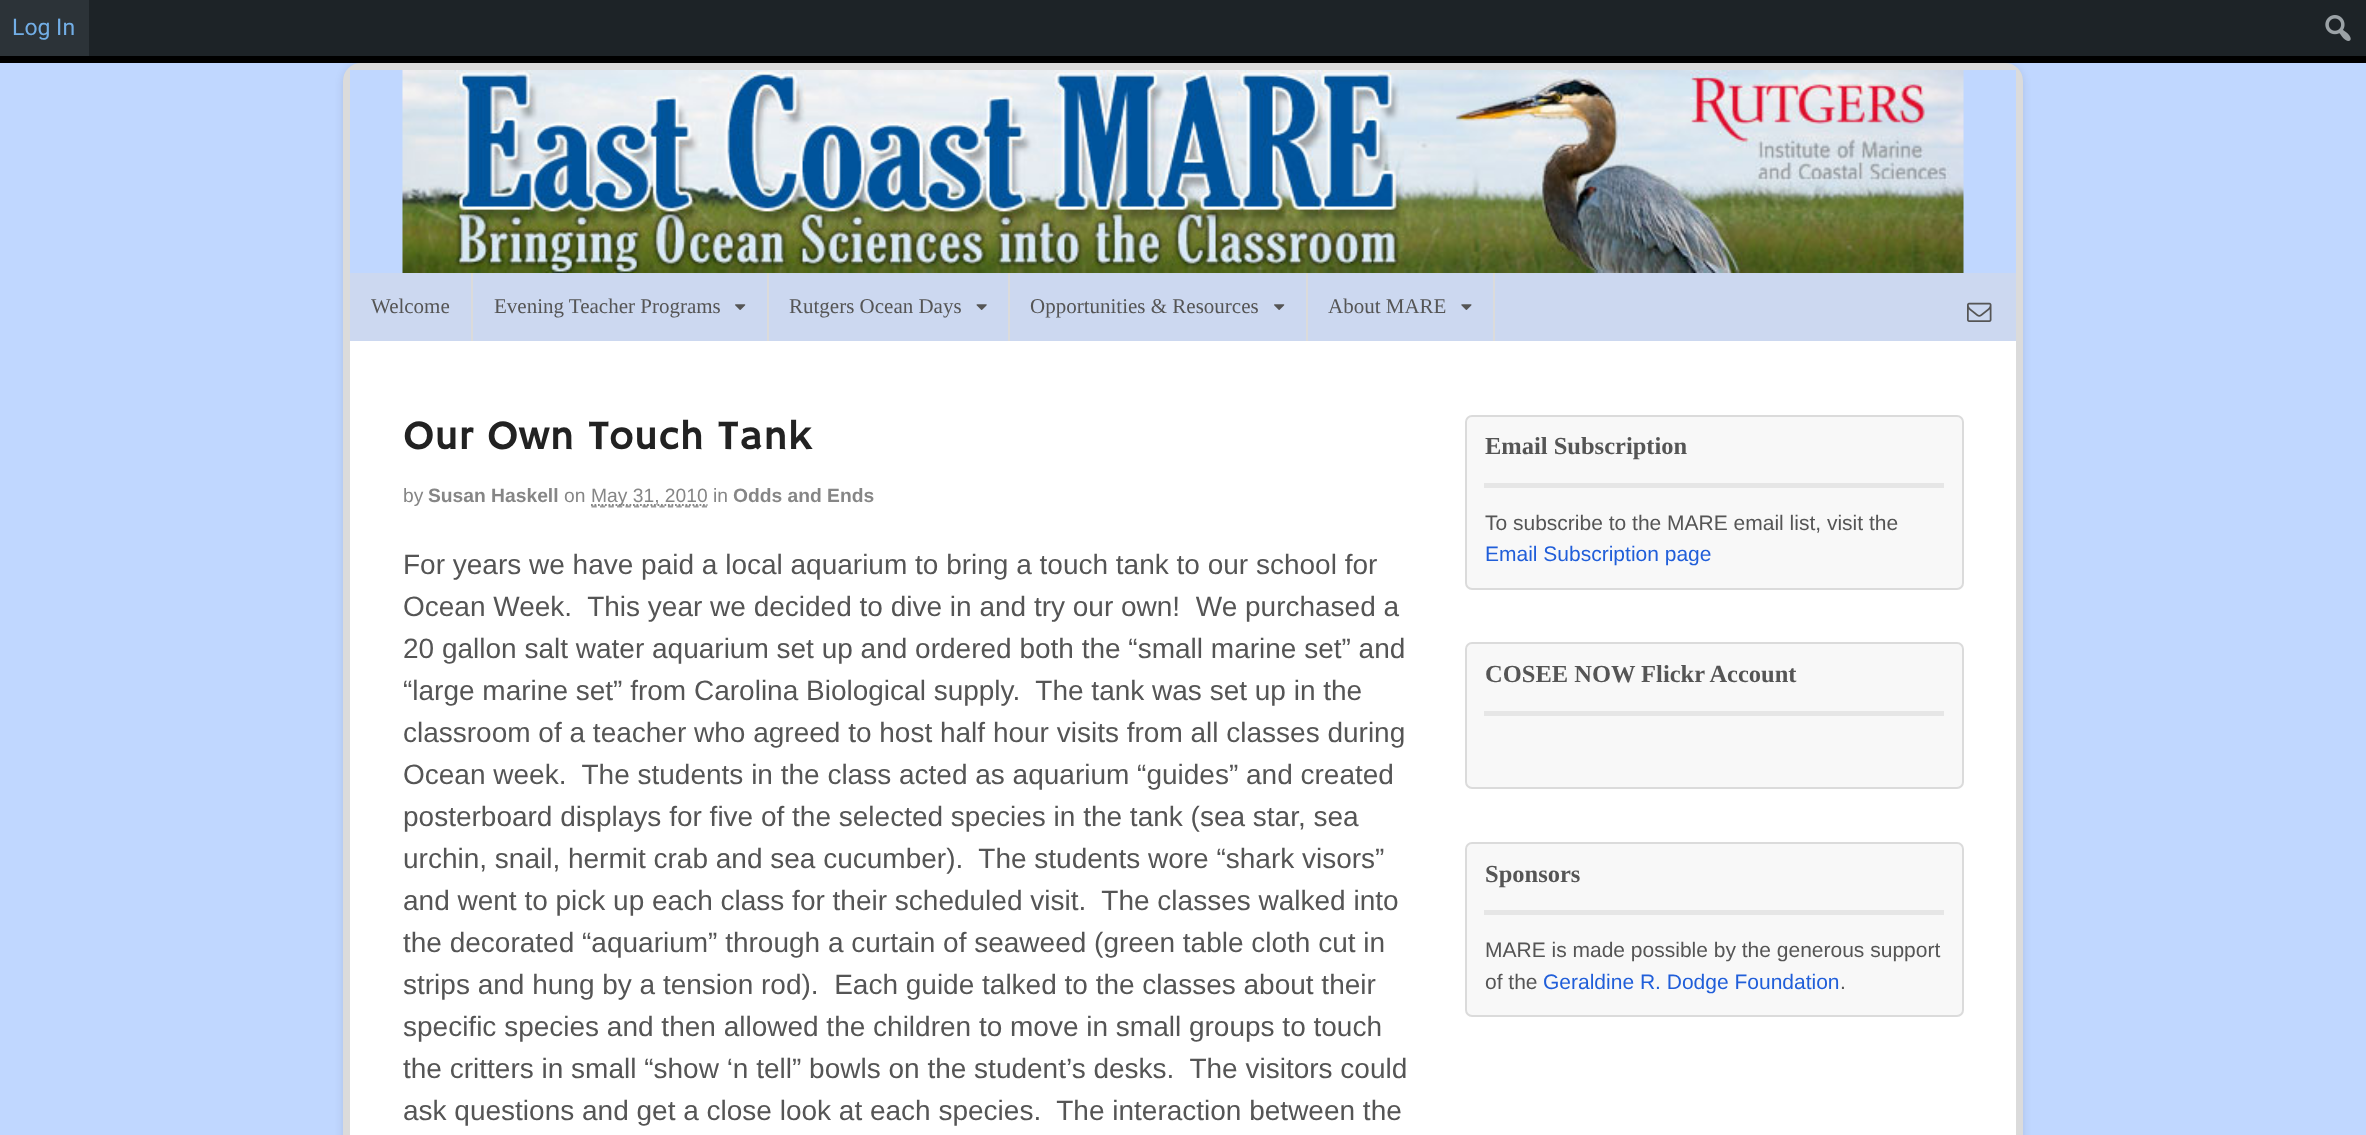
<?xml version="1.0" encoding="UTF-8"?>
<svg xmlns="http://www.w3.org/2000/svg" xmlns:xlink="http://www.w3.org/1999/xlink" width="2366" height="1135">
  <rect width="100%" height="100%" fill="#c0d7ff" />
  <rect y="56" width="2366" height="7" fill="#000000" />
  <rect x="343" y="65" width="1680" height="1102" rx="18" fill="#000000" fill-opacity="0.1" filter="blur(4.5px)" />
  <rect x="89" width="2277" height="56" fill="#1d2327" />
  <rect width="89" height="56" fill="#2c3338" />
  <image x="2325" y="15" width="26" height="26" xlink:href="image1.png" />
  <rect x="346.5" y="66.5" width="1673" height="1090" rx="14.5" fill="#ffffff" stroke="#dbdbdb" stroke-width="7" />
  <rect x="350" y="70" width="1666" height="203" fill="#c0d7ff" />
  <image x="402" y="70" width="1562" height="203" xlink:href="image2.png" />
  <rect x="350" y="273" width="1666" height="68" fill="#ccd8f0" />
  <rect x="471" y="273" width="2" height="68" fill="#dbdbdb" />
  <rect x="767" y="273" width="2" height="68" fill="#dbdbdb" />
  <image x="735" y="304" width="11" height="6" xlink:href="image3.png" />
  <rect x="1008" y="273" width="2" height="68" fill="#dbdbdb" />
  <image x="976" y="304" width="11" height="6" xlink:href="image4.png" />
  <rect x="1306" y="273" width="2" height="68" fill="#dbdbdb" />
  <image x="1274" y="304" width="11" height="6" xlink:href="image3.png" />
  <rect x="1493" y="273" width="2" height="68" fill="#dbdbdb" />
  <image x="1461" y="304" width="11" height="6" xlink:href="image5.png" />
  <image x="1967" y="302" width="25" height="20" xlink:href="image6.png" />
  <path d="M 591.5 506.5 h 115.5" fill="none" stroke="#999999" stroke-width="1.8" stroke-dasharray="5.25 3.24" />
  <path d="M 591 505 h 116.5" fill="none" stroke="#868686" stroke-width="1.8" stroke-dasharray="1.75 1.75" />
  <rect x="1466" y="416" width="497" height="173" rx="6" fill="#f8f8f8" stroke="#dbdbdb" stroke-width="2" />
  <rect x="1484" y="483" width="460" height="5" fill="#e6e6e6" />
  <rect x="1466" y="643" width="497" height="145" rx="6" fill="#f8f8f8" stroke="#dbdbdb" stroke-width="2" />
  <rect x="1484" y="711" width="460" height="5" fill="#e6e6e6" />
  <rect x="1466" y="843" width="497" height="173" rx="6" fill="#f8f8f8" stroke="#dbdbdb" stroke-width="2" />
  <rect x="1484" y="910" width="460" height="5" fill="#e6e6e6" />
  <text x="12" y="35" style="font-family: Roboto; font-size: 23px; fill: #72aee6">Log In</text>
  <text x="371" y="313" style="font-family: Liberation Serif; font-size: 21px; fill: #555555">Welcome</text>
  <text x="494" y="313" style="font-family: Liberation Serif; font-size: 21px; fill: #555555">Evening Teacher Programs</text>
  <text x="789" y="313" style="font-family: Liberation Serif; font-size: 21px; fill: #555555">Rutgers Ocean Days</text>
  <text x="1030" y="313" style="font-family: Liberation Serif; font-size: 21px; fill: #555555">Opportunities &amp; Resources</text>
  <text x="1328" y="313" style="font-family: Liberation Serif; font-size: 21px; fill: #555555">About MARE</text>
  <text x="403" y="449" style="font-family: Hammersmith One; font-size: 42px; fill: #222222">Our Own Touch Tank</text>
  <text x="403" y="502" style="font-family: Liberation Sans; font-size: 19.25px; fill: #868686">by</text>
  <text x="428" y="502" style="font-family: Liberation Sans; font-size: 19.25px; font-weight: bold; fill: #868686">Susan Haskell</text>
  <text x="564" y="502" style="font-family: Liberation Sans; font-size: 19.25px; fill: #868686">on</text>
  <text x="591" y="502" style="font-family: Liberation Sans; font-size: 19.25px; fill: #868686">May 31, 2010 in</text>
  <text x="733" y="502" style="font-family: Liberation Sans; font-size: 19.25px; font-weight: bold; fill: #868686">Odds and Ends</text>
  <text x="403" y="574" style="font-family: Liberation Sans; font-size: 28px; fill: #555555">For years we have paid a local aquarium to bring a touch tank to our school for</text>
  <text x="403" y="616" style="font-family: Liberation Sans; font-size: 28px; fill: #555555" xml:space="preserve">Ocean Week.  This year we decided to dive in and try our own!  We purchased a</text>
  <text x="403" y="658" style="font-family: Liberation Sans; font-size: 28px; fill: #555555">20 gallon salt water aquarium set up and ordered both the “small marine set” and</text>
  <text x="403" y="700" style="font-family: Liberation Sans; font-size: 28px; fill: #555555" xml:space="preserve">“large marine set” from Carolina Biological supply.  The tank was set up in the</text>
  <text x="403" y="742" style="font-family: Liberation Sans; font-size: 28px; fill: #555555">classroom of a teacher who agreed to host half hour visits from all classes during</text>
  <text x="403" y="784" style="font-family: Liberation Sans; font-size: 28px; fill: #555555" xml:space="preserve">Ocean week.  The students in the class acted as aquarium “guides” and created</text>
  <text x="403" y="826" style="font-family: Liberation Sans; font-size: 28px; fill: #555555">posterboard displays for five of the selected species in the tank (sea star, sea</text>
  <text x="403" y="868" style="font-family: Liberation Sans; font-size: 28px; fill: #555555" xml:space="preserve">urchin, snail, hermit crab and sea cucumber).  The students wore “shark visors”</text>
  <text x="403" y="910" style="font-family: Liberation Sans; font-size: 28px; fill: #555555" xml:space="preserve">and went to pick up each class for their scheduled visit.  The classes walked into</text>
  <text x="403" y="952" style="font-family: Liberation Sans; font-size: 28px; fill: #555555">the decorated “aquarium” through a curtain of seaweed (green table cloth cut in</text>
  <text x="403" y="994" style="font-family: Liberation Sans; font-size: 28px; fill: #555555" xml:space="preserve">strips and hung by a tension rod).  Each guide talked to the classes about their</text>
  <text x="403" y="1036" style="font-family: Liberation Sans; font-size: 28px; fill: #555555">specific species and then allowed the children to move in small groups to touch</text>
  <text x="403" y="1078" style="font-family: Liberation Sans; font-size: 28px; fill: #555555" xml:space="preserve">the critters in small “show ‘n tell” bowls on the student’s desks.  The visitors could</text>
  <text x="403" y="1120" style="font-family: Liberation Sans; font-size: 28px; fill: #555555" xml:space="preserve">ask questions and get a close look at each species.  The interaction between the</text>
  <text x="1485" y="454" style="font-family: Liberation Serif; font-size: 24.5px; font-weight: bold; fill: #555555">Email Subscription</text>
  <text x="1485" y="530" style="font-family: Liberation Sans; font-size: 21px; fill: #555555">To subscribe to the MARE email list, visit the</text>
  <text x="1485" y="561" style="font-family: Liberation Sans; font-size: 21px; fill: #205ed9">Email Subscription page</text>
  <text x="1485" y="682" style="font-family: Liberation Serif; font-size: 24.5px; font-weight: bold; fill: #555555">COSEE NOW Flickr Account</text>
  <text x="1485" y="882" style="font-family: Liberation Serif; font-size: 24.5px; font-weight: bold; fill: #555555">Sponsors</text>
  <text x="1485" y="957" style="font-family: Liberation Sans; font-size: 21px; fill: #555555">MARE is made possible by the generous support</text>
  <text x="1485" y="989" style="font-family: Liberation Sans; font-size: 21px; fill: #555555">of the</text>
  <text x="1543" y="989" style="font-family: Liberation Sans; font-size: 21px; fill: #205ed9">Geraldine R. Dodge Foundation</text>
  <text x="1840" y="989" style="font-family: Liberation Sans; font-size: 21px; fill: #555555">.</text>
</svg>
